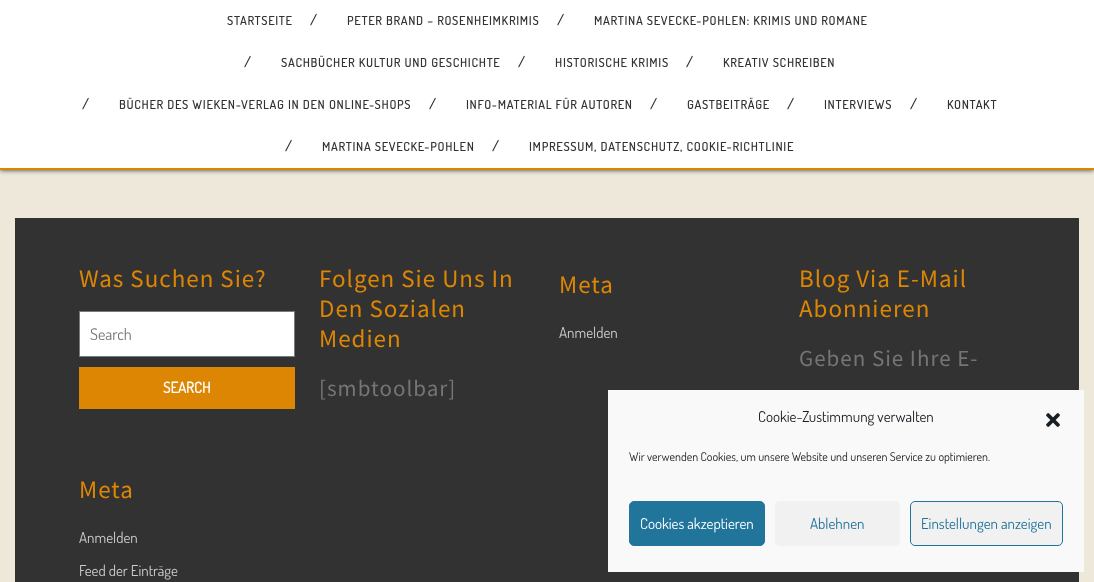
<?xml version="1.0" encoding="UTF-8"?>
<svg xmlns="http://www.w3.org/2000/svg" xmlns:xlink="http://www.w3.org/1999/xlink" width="1094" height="582">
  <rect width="100%" height="100%" fill="#ede8da" />
  <rect width="1094" height="170" fill="#323232" filter="blur(2.5px)" />
  <rect width="1094" height="168" fill="#ffffff" />
  <rect y="168" width="1094" height="2" fill="#dd8604" />
  <rect x="15" y="218" width="1064" height="364" fill="#323232" />
  <rect x="79.5" y="311.5" width="215" height="45" fill="#ffffff" stroke="#7a7a7a" />
  <rect x="79" y="367" width="216" height="42" fill="#dd8604" />
  <rect x="608" y="390" width="476" height="182" fill="#f9f9f9" />
  <image x="1046" y="413" width="14" height="14" xlink:href="image1.png" />
  <rect x="629.5" y="501.5" width="135" height="44" rx="4.5" fill="#21759b" stroke="#21759b" />
  <rect x="775" y="501" width="125" height="45" rx="5" fill="#f1f1f1" />
  <rect x="910.5" y="501.5" width="152" height="44" rx="4.5" fill="#f1f1f1" stroke="#21759b" />
  <text x="227" y="25" style="font-family: Dosis; font-size: 12px; font-weight: bold; letter-spacing: 1px; fill: #323232">STARTSEITE</text>
  <text x="310" y="25" style="font-family: Dosis; font-size: 14px; font-weight: bold; fill: #323232">/</text>
  <text x="347" y="25" style="font-family: Dosis; font-size: 12px; font-weight: bold; letter-spacing: 1px; fill: #323232">PETER BRAND – ROSENHEIMKRIMIS</text>
  <text x="557" y="25" style="font-family: Dosis; font-size: 14px; font-weight: bold; fill: #323232">/</text>
  <text x="594" y="25" style="font-family: Dosis; font-size: 12px; font-weight: bold; letter-spacing: 1px; fill: #323232">MARTINA SEVECKE-POHLEN: KRIMIS UND ROMANE</text>
  <text x="244" y="67" style="font-family: Dosis; font-size: 14px; font-weight: bold; fill: #323232">/</text>
  <text x="281" y="67" style="font-family: Dosis; font-size: 12px; font-weight: bold; letter-spacing: 1px; fill: #323232">SACHBÜCHER KULTUR UND GESCHICHTE</text>
  <text x="518" y="67" style="font-family: Dosis; font-size: 14px; font-weight: bold; fill: #323232">/</text>
  <text x="555" y="67" style="font-family: Dosis; font-size: 12px; font-weight: bold; letter-spacing: 1px; fill: #323232">HISTORISCHE KRIMIS</text>
  <text x="686" y="67" style="font-family: Dosis; font-size: 14px; font-weight: bold; fill: #323232">/</text>
  <text x="723" y="67" style="font-family: Dosis; font-size: 12px; font-weight: bold; letter-spacing: 1px; fill: #323232">KREATIV SCHREIBEN</text>
  <text x="82" y="109" style="font-family: Dosis; font-size: 14px; font-weight: bold; fill: #323232">/</text>
  <text x="119" y="109" style="font-family: Dosis; font-size: 12px; font-weight: bold; letter-spacing: 1px; fill: #323232">BÜCHER DES WIEKEN-VERLAG IN DEN ONLINE-SHOPS</text>
  <text x="429" y="109" style="font-family: Dosis; font-size: 14px; font-weight: bold; fill: #323232">/</text>
  <text x="466" y="109" style="font-family: Dosis; font-size: 12px; font-weight: bold; letter-spacing: 1px; fill: #323232">INFO-MATERIAL FÜR AUTOREN</text>
  <text x="650" y="109" style="font-family: Dosis; font-size: 14px; font-weight: bold; fill: #323232">/</text>
  <text x="687" y="109" style="font-family: Dosis; font-size: 12px; font-weight: bold; letter-spacing: 1px; fill: #323232">GASTBEITRÄGE</text>
  <text x="787" y="109" style="font-family: Dosis; font-size: 14px; font-weight: bold; fill: #323232">/</text>
  <text x="824" y="109" style="font-family: Dosis; font-size: 12px; font-weight: bold; letter-spacing: 1px; fill: #323232">INTERVIEWS</text>
  <text x="910" y="109" style="font-family: Dosis; font-size: 14px; font-weight: bold; fill: #323232">/</text>
  <text x="947" y="109" style="font-family: Dosis; font-size: 12px; font-weight: bold; letter-spacing: 1px; fill: #323232">KONTAKT</text>
  <text x="285" y="151" style="font-family: Dosis; font-size: 14px; font-weight: bold; fill: #323232">/</text>
  <text x="322" y="151" style="font-family: Dosis; font-size: 12px; font-weight: bold; letter-spacing: 1px; fill: #323232">MARTINA SEVECKE-POHLEN</text>
  <text x="492" y="151" style="font-family: Dosis; font-size: 14px; font-weight: bold; fill: #323232">/</text>
  <text x="529" y="151" style="font-family: Dosis; font-size: 12px; font-weight: bold; letter-spacing: 1px; fill: #323232">IMPRESSUM, DATENSCHUTZ, COOKIE-RICHTLINIE</text>
  <text x="79" y="287" style="font-family: Source Sans Pro; font-size: 25px; letter-spacing: 1px; fill: #dd8604">Was Suchen Sie?</text>
  <text x="90" y="340" style="font-family: Dosis; font-size: 16px; fill: #757575">Search</text>
  <text x="163" y="393" style="font-family: Dosis; font-size: 15px; font-weight: bold; fill: #ffffff">SEARCH</text>
  <text x="79" y="498" style="font-family: Source Sans Pro; font-size: 25px; letter-spacing: 1px; fill: #dd8604">Meta</text>
  <text x="79" y="543" style="font-family: Dosis; font-size: 15px; fill: #cccccc">Anmelden</text>
  <text x="79" y="576" style="font-family: Dosis; font-size: 15px; fill: #cccccc">Feed der Einträge</text>
  <text x="319" y="287" style="font-family: Source Sans Pro; font-size: 25px; letter-spacing: 1px; fill: #dd8604">Folgen Sie Uns In</text>
  <text x="319" y="317" style="font-family: Source Sans Pro; font-size: 25px; letter-spacing: 1px; fill: #dd8604">Den Sozialen</text>
  <text x="319" y="347" style="font-family: Source Sans Pro; font-size: 25px; letter-spacing: 1px; fill: #dd8604">Medien</text>
  <text x="319" y="396" style="font-family: Source Sans Pro; font-size: 23px; letter-spacing: 1px; fill: #757575">[smbtoolbar]</text>
  <text x="559" y="293" style="font-family: Source Sans Pro; font-size: 25px; letter-spacing: 1px; fill: #dd8604">Meta</text>
  <text x="559" y="338" style="font-family: Dosis; font-size: 15px; fill: #cccccc">Anmelden</text>
  <text x="799" y="287" style="font-family: Source Sans Pro; font-size: 25px; letter-spacing: 1px; fill: #dd8604">Blog Via E-Mail</text>
  <text x="799" y="317" style="font-family: Source Sans Pro; font-size: 25px; letter-spacing: 1px; fill: #dd8604">Abonnieren</text>
  <text x="799" y="366" style="font-family: Source Sans Pro; font-size: 23px; letter-spacing: 1px; fill: #757575">Geben Sie Ihre E-</text>
  <text x="758" y="422" style="font-family: Dosis; font-size: 15px; fill: #191e23">Cookie-Zustimmung verwalten</text>
  <text x="629" y="461" style="font-family: Dosis; font-size: 12px; fill: #191e23">Wir verwenden Cookies, um unsere Website und unseren Service zu optimieren.</text>
  <text x="640" y="529" style="font-family: Dosis; font-size: 15px; fill: #ffffff">Cookies akzeptieren</text>
  <text x="810" y="529" style="font-family: Dosis; font-size: 15px; fill: #21759b">Ablehnen</text>
  <text x="921" y="529" style="font-family: Dosis; font-size: 15px; fill: #21759b">Einstellungen anzeigen</text>
</svg>
